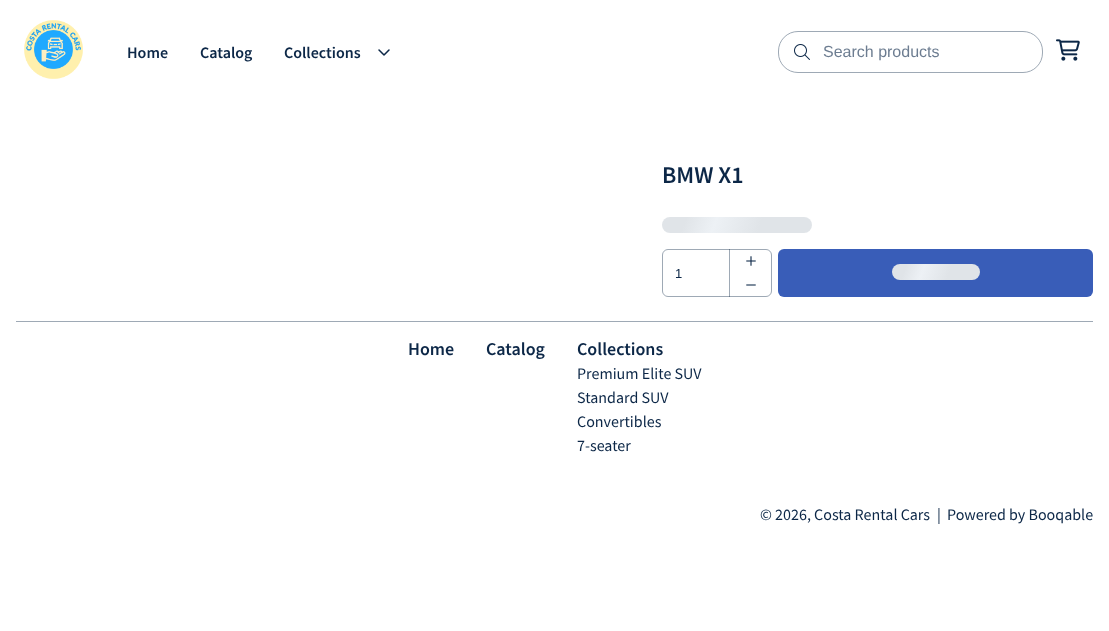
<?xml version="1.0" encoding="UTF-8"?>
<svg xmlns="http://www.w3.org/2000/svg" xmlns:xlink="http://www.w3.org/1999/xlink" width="1109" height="631">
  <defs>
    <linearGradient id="g1" gradientUnits="userSpaceOnUse" x1="677" y1="176" x2="947" y2="274"><stop offset="0.08" stop-color="#e0e4e8" /><stop offset="0.18" stop-color="#edf1f5" /><stop offset="0.33" stop-color="#e0e4e8" /></linearGradient>
    <linearGradient id="g2" gradientUnits="userSpaceOnUse" x1="900" y1="243" x2="1060" y2="301"><stop offset="0.08" stop-color="#e0e4e8" /><stop offset="0.18" stop-color="#edf1f5" /><stop offset="0.33" stop-color="#e0e4e8" /></linearGradient>
  </defs>
  <rect width="100%" height="100%" fill="#ffffff" />
  <image x="24" y="20" width="59" height="59" xlink:href="image1.png" />
  <image x="378" y="49" width="12" height="7" xlink:href="image2.png" />
  <rect x="778.5" y="31.5" width="264" height="41" rx="19.5" fill="none" stroke="#9ea9b5" />
  <image x="794" y="44" width="16" height="16" xlink:href="image3.png" />
  <image x="1056" y="39" width="24" height="22" xlink:href="image4.png" />
  <rect x="662" y="217" width="150" height="16" rx="8" fill="url(#g1)" />
  <rect x="662.5" y="249.5" width="109" height="47" rx="5.5" fill="none" stroke="#9ea9b5" />
  <rect x="729" y="249" width="1" height="48" fill="#0c2747" fill-opacity="0.4" />
  <image x="746" y="256" width="10" height="10" xlink:href="image5.png" />
  <image x="746" y="284" width="10" height="2" xlink:href="image6.png" />
  <rect x="778" y="249" width="315" height="48" rx="6" fill="#395db8" />
  <rect x="892" y="264" width="88" height="16" rx="8" fill="url(#g2)" />
  <rect x="16" y="321" width="1077" height="1" fill="#9ea9b5" />
  <text x="127" y="58" style="font-family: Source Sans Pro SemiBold; font-size: 16px; font-weight: 600; fill: #0c2747">Home</text>
  <text x="200" y="58" style="font-family: Source Sans Pro SemiBold; font-size: 16px; font-weight: 600; fill: #0c2747">Catalog</text>
  <text x="284" y="58" style="font-family: Source Sans Pro SemiBold; font-size: 16px; font-weight: 600; fill: #0c2747">Collections</text>
  <text x="823" y="57" style="font-family: Liberation Sans; font-size: 16px; fill: #6d7d91">Search products</text>
  <text x="662" y="183" style="font-family: Source Sans Pro SemiBold; font-size: 24px; font-weight: 600; fill: #0c2747">BMW X1</text>
  <text x="675" y="278" style="font-family: Liberation Sans; font-size: 13px; fill: #0c2747">1</text>
  <text x="408" y="355" style="font-family: Source Sans Pro SemiBold; font-size: 18px; font-weight: 600; fill: #0c2747">Home</text>
  <text x="486" y="355" style="font-family: Source Sans Pro SemiBold; font-size: 18px; font-weight: 600; fill: #0c2747">Catalog</text>
  <text x="577" y="355" style="font-family: Source Sans Pro SemiBold; font-size: 18px; font-weight: 600; fill: #0c2747">Collections</text>
  <text x="577" y="379" style="font-family: Source Sans Pro; font-size: 16px; fill: #0c2747">Premium Elite SUV</text>
  <text x="577" y="403" style="font-family: Source Sans Pro; font-size: 16px; fill: #0c2747">Standard SUV</text>
  <text x="577" y="427" style="font-family: Source Sans Pro; font-size: 16px; fill: #0c2747">Convertibles</text>
  <text x="577" y="451" style="font-family: Source Sans Pro; font-size: 16px; fill: #0c2747">7-seater</text>
  <text x="760" y="520" style="font-family: Source Sans Pro; font-size: 16px; fill: #0c2747">© 2026, Costa Rental Cars</text>
  <text x="937" y="520" style="font-family: Source Sans Pro; font-size: 16px; fill: #0c2747">|</text>
  <text x="947" y="520" style="font-family: Source Sans Pro; font-size: 16px; fill: #0c2747">Powered by Booqable</text>
</svg>
